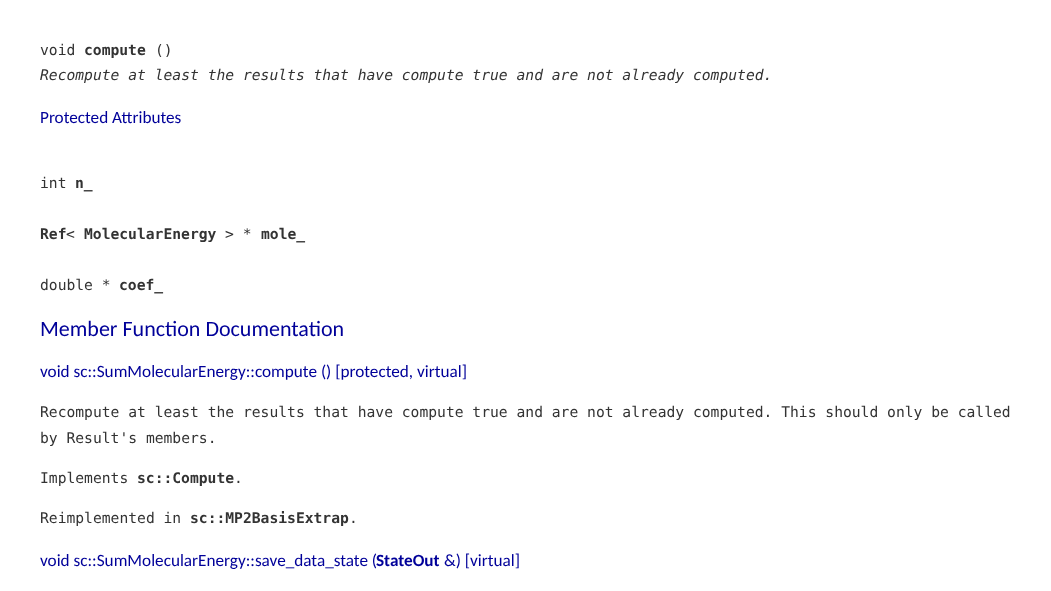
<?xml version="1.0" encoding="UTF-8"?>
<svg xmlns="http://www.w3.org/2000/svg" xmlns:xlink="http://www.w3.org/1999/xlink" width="1051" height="591">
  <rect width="100%" height="100%" fill="#ffffff" />
  <text x="40" y="55" style="font-family: DejaVu Sans Mono; font-size: 14.67px; fill: #333333">void</text>
  <text x="84" y="55" style="font-family: DejaVu Sans Mono; font-size: 14.67px; font-weight: bold; fill: #333333">compute</text>
  <text x="155" y="55" style="font-family: DejaVu Sans Mono; font-size: 14.67px; fill: #333333">()</text>
  <text x="40" y="80" style="font-family: DejaVu Sans Mono; font-size: 14.67px; font-style: italic; fill: #333333">Recompute at least the results that have compute true and are not already computed.</text>
  <text x="40" y="123" style="font-family: Carlito; font-size: 17.2px; fill: #000099">Protected Attributes</text>
  <text x="40" y="188" style="font-family: DejaVu Sans Mono; font-size: 14.67px; fill: #333333">int</text>
  <text x="75" y="188" style="font-family: DejaVu Sans Mono; font-size: 14.67px; font-weight: bold; fill: #333333">n_</text>
  <text x="40" y="239" style="font-family: DejaVu Sans Mono; font-size: 14.67px; font-weight: bold; fill: #333333">Ref</text>
  <text x="66" y="239" style="font-family: DejaVu Sans Mono; font-size: 14.67px; fill: #333333">&lt;</text>
  <text x="84" y="239" style="font-family: DejaVu Sans Mono; font-size: 14.67px; font-weight: bold; fill: #333333">MolecularEnergy</text>
  <text x="225" y="239" style="font-family: DejaVu Sans Mono; font-size: 14.67px; fill: #333333">&gt; *</text>
  <text x="261" y="239" style="font-family: DejaVu Sans Mono; font-size: 14.67px; font-weight: bold; fill: #333333">mole_</text>
  <text x="40" y="290" style="font-family: DejaVu Sans Mono; font-size: 14.67px; fill: #333333">double *</text>
  <text x="119" y="290" style="font-family: DejaVu Sans Mono; font-size: 14.67px; font-weight: bold; fill: #333333">coef_</text>
  <text x="40" y="336" style="font-family: Carlito; font-size: 22px; fill: #000099">Member Function Documentation</text>
  <text x="40" y="377" style="font-family: Carlito; font-size: 17.2px; fill: #000099">void sc::SumMolecularEnergy::compute () [protected, virtual]</text>
  <text x="40" y="417" style="font-family: DejaVu Sans Mono; font-size: 14.67px; fill: #333333">Recompute at least the results that have compute true and are not already computed. This should only be called</text>
  <text x="40" y="443" style="font-family: DejaVu Sans Mono; font-size: 14.67px; fill: #333333">by Result's members.</text>
  <text x="40" y="483" style="font-family: DejaVu Sans Mono; font-size: 14.67px; fill: #333333">Implements</text>
  <text x="137" y="483" style="font-family: DejaVu Sans Mono; font-size: 14.67px; font-weight: bold; fill: #333333">sc::Compute</text>
  <text x="234" y="483" style="font-family: DejaVu Sans Mono; font-size: 14.67px; fill: #333333">.</text>
  <text x="40" y="523" style="font-family: DejaVu Sans Mono; font-size: 14.67px; fill: #333333">Reimplemented in</text>
  <text x="190" y="523" style="font-family: DejaVu Sans Mono; font-size: 14.67px; font-weight: bold; fill: #333333">sc::MP2BasisExtrap</text>
  <text x="349" y="523" style="font-family: DejaVu Sans Mono; font-size: 14.67px; fill: #333333">.</text>
  <text x="40" y="566" style="font-family: Carlito; font-size: 17.2px; fill: #000099">void sc::SumMolecularEnergy::save_data_state (</text>
  <text x="376" y="566" style="font-family: Carlito; font-size: 17.2px; font-weight: bold; fill: #000099">StateOut</text>
  <text x="444" y="566" style="font-family: Carlito; font-size: 17.2px; fill: #000099">&amp;) [virtual]</text>
</svg>
